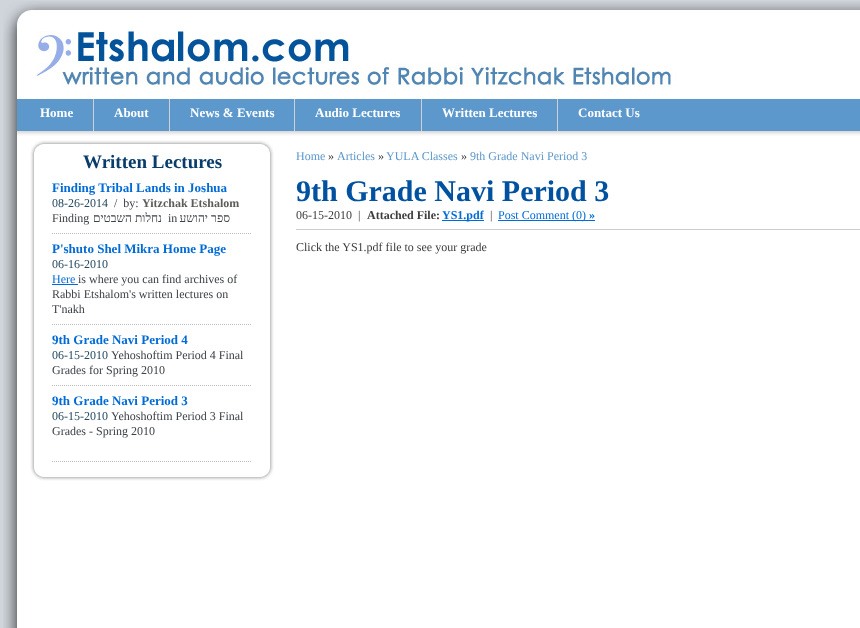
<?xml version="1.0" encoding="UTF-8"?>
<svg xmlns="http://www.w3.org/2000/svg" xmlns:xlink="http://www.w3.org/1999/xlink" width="860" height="628">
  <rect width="100%" height="100%" fill="#d0d4db" />
  <image x="3" y="1" width="857" height="97" xlink:href="image1.png" />
  <image x="30" y="31" width="647" height="56" xlink:href="image2.png" />
  <image x="3" y="98" width="857" height="530" xlink:href="image3.png" />
  <image x="17" y="99" width="843" height="37" xlink:href="image4.png" />
  <rect x="93" y="99" width="1" height="32" fill="#d0d0d0" />
  <rect x="169" y="99" width="1" height="32" fill="#d0d0d0" />
  <rect x="294" y="99" width="1" height="32" fill="#d0d0d0" />
  <rect x="421" y="99" width="1" height="32" fill="#d0d0d0" />
  <rect x="557" y="99" width="1" height="32" fill="#d0d0d0" />
  <image x="30" y="153" width="244" height="316" xlink:href="image5.png" />
  <image x="30" y="139" width="244" height="14" xlink:href="image6.png" />
  <path d="M 52 233.5 h 200" fill="none" stroke="#bdbdbd" stroke-dasharray="1 1" />
  <path d="M 52 324.5 h 200" fill="none" stroke="#bdbdbd" stroke-dasharray="1 1" />
  <rect x="52" y="284" width="26" height="1" fill="#006bd6" />
  <path d="M 52 385.5 h 200" fill="none" stroke="#bdbdbd" stroke-dasharray="1 1" />
  <path d="M 52 461.5 h 200" fill="none" stroke="#bdbdbd" stroke-dasharray="1 1" />
  <image x="30" y="469" width="244" height="13" xlink:href="image7.png" />
  <rect x="442" y="220" width="42" height="1" fill="#006bd6" />
  <rect x="498" y="220" width="97" height="1" fill="#006bd6" />
  <rect x="296" y="229" width="564" height="1" fill="#cccccc" />
  <text x="40" y="117" style="font-family: Liberation Serif; font-size: 13px; font-weight: bold; fill: #ffffff">Home</text>
  <text x="114" y="117" style="font-family: Liberation Serif; font-size: 13px; font-weight: bold; fill: #ffffff">About</text>
  <text x="190" y="117" style="font-family: Liberation Serif; font-size: 13px; font-weight: bold; fill: #ffffff">News &amp; Events</text>
  <text x="315" y="117" style="font-family: Liberation Serif; font-size: 13px; font-weight: bold; fill: #ffffff">Audio Lectures</text>
  <text x="442" y="117" style="font-family: Liberation Serif; font-size: 13px; font-weight: bold; fill: #ffffff">Written Lectures</text>
  <text x="578" y="117" style="font-family: Liberation Serif; font-size: 13px; font-weight: bold; fill: #ffffff">Contact Us</text>
  <text x="83" y="168" style="font-family: Liberation Serif; font-size: 19px; font-weight: bold; fill: #073c6b">Written Lectures</text>
  <text x="52" y="192" style="font-family: Liberation Serif; font-size: 13px; font-weight: bold; fill: #006bd6">Finding Tribal Lands in Joshua</text>
  <text x="52" y="207" style="font-family: Liberation Serif; font-size: 12px; fill: #254960">08-26-2014</text>
  <text x="114" y="207" style="font-family: Liberation Serif; font-size: 12px; fill: #3d4148" xml:space="preserve">/  by:</text>
  <text x="142" y="207" style="font-family: Liberation Serif; font-size: 12px; font-weight: bold; fill: #5c5d59">Yitzchak Etshalom</text>
  <text x="52" y="222" style="font-family: Liberation Serif; font-size: 12px; fill: #3d4148">Finding</text>
  <text x="162" y="222" style="font-family: Liberation Serif; font-size: 12px; direction: rtl; fill: #3d4148">נחלות השבטים</text>
  <text x="168" y="222" style="font-family: Liberation Serif; font-size: 12px; fill: #3d4148">in</text>
  <text x="230" y="222" style="font-family: Liberation Serif; font-size: 12px; direction: rtl; fill: #3d4148">ספר יהושע</text>
  <text x="52" y="253" style="font-family: Liberation Serif; font-size: 13px; font-weight: bold; fill: #006bd6">P'shuto Shel Mikra Home Page</text>
  <text x="52" y="268" style="font-family: Liberation Serif; font-size: 12px; fill: #254960">06-16-2010</text>
  <text x="52" y="283" style="font-family: Liberation Serif; font-size: 12px; fill: #006bd6">Here</text>
  <text x="78" y="283" style="font-family: Liberation Serif; font-size: 12px; fill: #3d4148">is where you can find archives of</text>
  <text x="52" y="298" style="font-family: Liberation Serif; font-size: 12px; fill: #3d4148">Rabbi Etshalom's written lectures on</text>
  <text x="52" y="313" style="font-family: Liberation Serif; font-size: 12px; fill: #3d4148">T'nakh</text>
  <text x="52" y="344" style="font-family: Liberation Serif; font-size: 13px; font-weight: bold; fill: #006bd6">9th Grade Navi Period 4</text>
  <text x="52" y="359" style="font-family: Liberation Serif; font-size: 12px; fill: #254960">06-15-2010</text>
  <text x="111" y="359" style="font-family: Liberation Serif; font-size: 12px; fill: #3d4148">Yehoshoftim Period 4 Final</text>
  <text x="52" y="374" style="font-family: Liberation Serif; font-size: 12px; fill: #3d4148">Grades for Spring 2010</text>
  <text x="52" y="405" style="font-family: Liberation Serif; font-size: 13px; font-weight: bold; fill: #006bd6">9th Grade Navi Period 3</text>
  <text x="52" y="420" style="font-family: Liberation Serif; font-size: 12px; fill: #254960">06-15-2010</text>
  <text x="111" y="420" style="font-family: Liberation Serif; font-size: 12px; fill: #3d4148">Yehoshoftim Period 3 Final</text>
  <text x="52" y="435" style="font-family: Liberation Serif; font-size: 12px; fill: #3d4148">Grades - Spring 2010</text>
  <text x="296" y="160" style="font-family: Liberation Serif; font-size: 12px; fill: #5b97cb">Home</text>
  <text x="328" y="160" style="font-family: Liberation Serif; font-size: 12px; fill: #3c3c3c">»</text>
  <text x="337" y="160" style="font-family: Liberation Serif; font-size: 12px; fill: #5b97cb">Articles</text>
  <text x="378" y="160" style="font-family: Liberation Serif; font-size: 12px; fill: #3c3c3c">»</text>
  <text x="386" y="160" style="font-family: Liberation Serif; font-size: 12px; fill: #5b97cb">YULA Classes</text>
  <text x="461" y="160" style="font-family: Liberation Serif; font-size: 12px; fill: #3c3c3c">»</text>
  <text x="470" y="160" style="font-family: Liberation Serif; font-size: 12px; fill: #5b97cb">9th Grade Navi Period 3</text>
  <text x="296" y="201" style="font-family: Liberation Serif; font-size: 30px; font-weight: bold; fill: #0052a0">9th Grade Navi Period 3</text>
  <text x="296" y="219" style="font-family: Liberation Serif; font-size: 12px; fill: #3c3c3c">06-15-2010</text>
  <text x="358" y="219" style="font-family: Liberation Serif; font-size: 12px; fill: #3c3c3c">|</text>
  <text x="367" y="219" style="font-family: Liberation Serif; font-size: 12px; font-weight: bold; fill: #3c3c3c">Attached File:</text>
  <text x="442" y="219" style="font-family: Liberation Serif; font-size: 12px; font-weight: bold; fill: #006bd6">YS1.pdf</text>
  <text x="490" y="219" style="font-family: Liberation Serif; font-size: 12px; fill: #3c3c3c">|</text>
  <text x="498" y="219" style="font-family: Liberation Serif; font-size: 12px; fill: #006bd6">Post Comment (0)</text>
  <text x="589" y="219" style="font-family: Liberation Serif; font-size: 12px; font-weight: bold; fill: #006bd6">»</text>
  <text x="296" y="251" style="font-family: Liberation Serif; font-size: 12px; fill: #3c3c3c">Click the YS1.pdf file to see your grade</text>
</svg>
